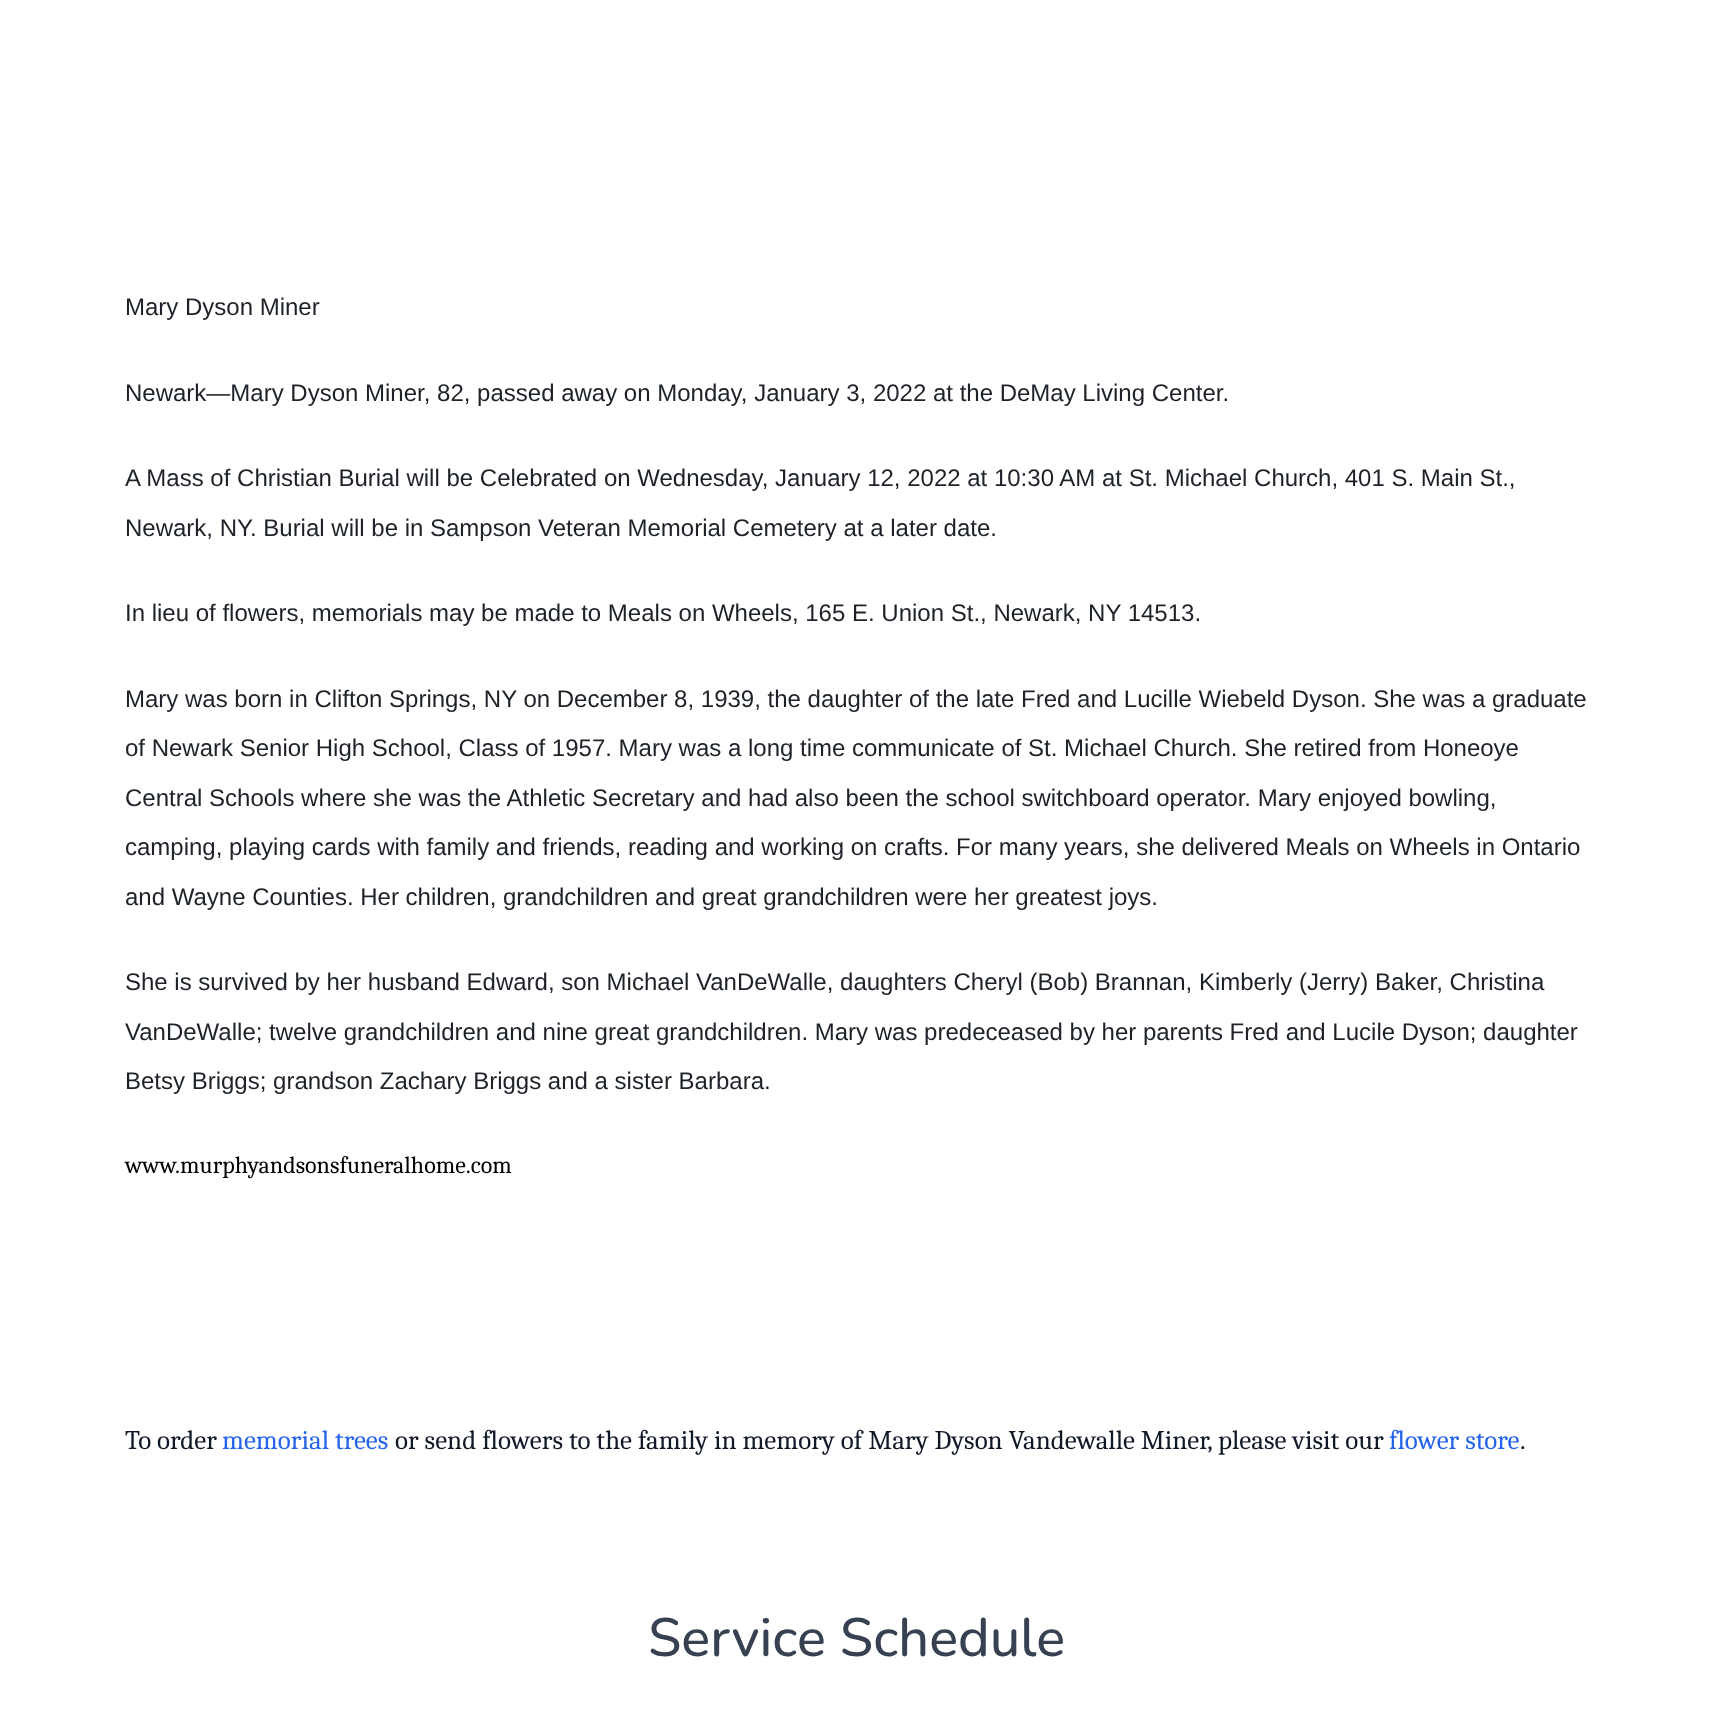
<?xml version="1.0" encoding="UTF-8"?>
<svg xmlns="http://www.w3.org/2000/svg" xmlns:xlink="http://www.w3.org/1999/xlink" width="1713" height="1713">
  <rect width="100%" height="100%" fill="#ffffff" />
  <text x="125" y="315" style="font-family: Liberation Sans; font-size: 24px; fill: #1d2228">Mary Dyson Miner</text>
  <text x="125" y="401" style="font-family: Liberation Sans; font-size: 24px; fill: #1d2228">Newark—Mary Dyson Miner, 82, passed away on Monday, January 3, 2022 at the DeMay Living Center.</text>
  <text x="125" y="486" style="font-family: Liberation Sans; font-size: 24px; fill: #1d2228">A Mass of Christian Burial will be Celebrated on Wednesday, January 12, 2022 at 10:30 AM at St. Michael Church, 401 S. Main St.,</text>
  <text x="125" y="536" style="font-family: Liberation Sans; font-size: 24px; fill: #1d2228">Newark, NY. Burial will be in Sampson Veteran Memorial Cemetery at a later date.</text>
  <text x="125" y="621" style="font-family: Liberation Sans; font-size: 24px; fill: #1d2228">In lieu of flowers, memorials may be made to Meals on Wheels, 165 E. Union St., Newark, NY 14513.</text>
  <text x="125" y="707" style="font-family: Liberation Sans; font-size: 24px; fill: #1d2228">Mary was born in Clifton Springs, NY on December 8, 1939, the daughter of the late Fred and Lucille Wiebeld Dyson. She was a graduate</text>
  <text x="125" y="756" style="font-family: Liberation Sans; font-size: 24px; fill: #1d2228">of Newark Senior High School, Class of 1957. Mary was a long time communicate of St. Michael Church. She retired from Honeoye</text>
  <text x="125" y="806" style="font-family: Liberation Sans; font-size: 24px; fill: #1d2228">Central Schools where she was the Athletic Secretary and had also been the school switchboard operator. Mary enjoyed bowling,</text>
  <text x="125" y="855" style="font-family: Liberation Sans; font-size: 24px; fill: #1d2228">camping, playing cards with family and friends, reading and working on crafts. For many years, she delivered Meals on Wheels in Ontario</text>
  <text x="125" y="905" style="font-family: Liberation Sans; font-size: 24px; fill: #1d2228">and Wayne Counties. Her children, grandchildren and great grandchildren were her greatest joys.</text>
  <text x="125" y="990" style="font-family: Liberation Sans; font-size: 24px; fill: #1d2228">She is survived by her husband Edward, son Michael VanDeWalle, daughters Cheryl (Bob) Brannan, Kimberly (Jerry) Baker, Christina</text>
  <text x="125" y="1040" style="font-family: Liberation Sans; font-size: 24px; fill: #1d2228">VanDeWalle; twelve grandchildren and nine great grandchildren. Mary was predeceased by her parents Fred and Lucile Dyson; daughter</text>
  <text x="125" y="1089" style="font-family: Liberation Sans; font-size: 24px; fill: #1d2228">Betsy Briggs; grandson Zachary Briggs and a sister Barbara.</text>
  <text x="125" y="1173" style="font-family: Caladea; font-size: 24px; fill: #000000">www.murphyandsonsfuneralhome.com</text>
  <text x="125" y="1449" style="font-family: Caladea; font-size: 27px; fill: #111827">To order</text>
  <text x="222" y="1449" style="font-family: Caladea; font-size: 27px; fill: #2563eb">memorial trees</text>
  <text x="395" y="1449" style="font-family: Caladea; font-size: 27px; fill: #111827">or send flowers to the family in memory of Mary Dyson Vandewalle Miner, please visit our</text>
  <text x="1389" y="1449" style="font-family: Caladea; font-size: 27px; fill: #2563eb">flower store</text>
  <text x="1520" y="1449" style="font-family: Caladea; font-size: 27px; fill: #111827">.</text>
  <text x="648" y="1656" style="font-family: Nunito; font-size: 54px; font-weight: 500; fill: #374151">Service Schedule</text>
</svg>
